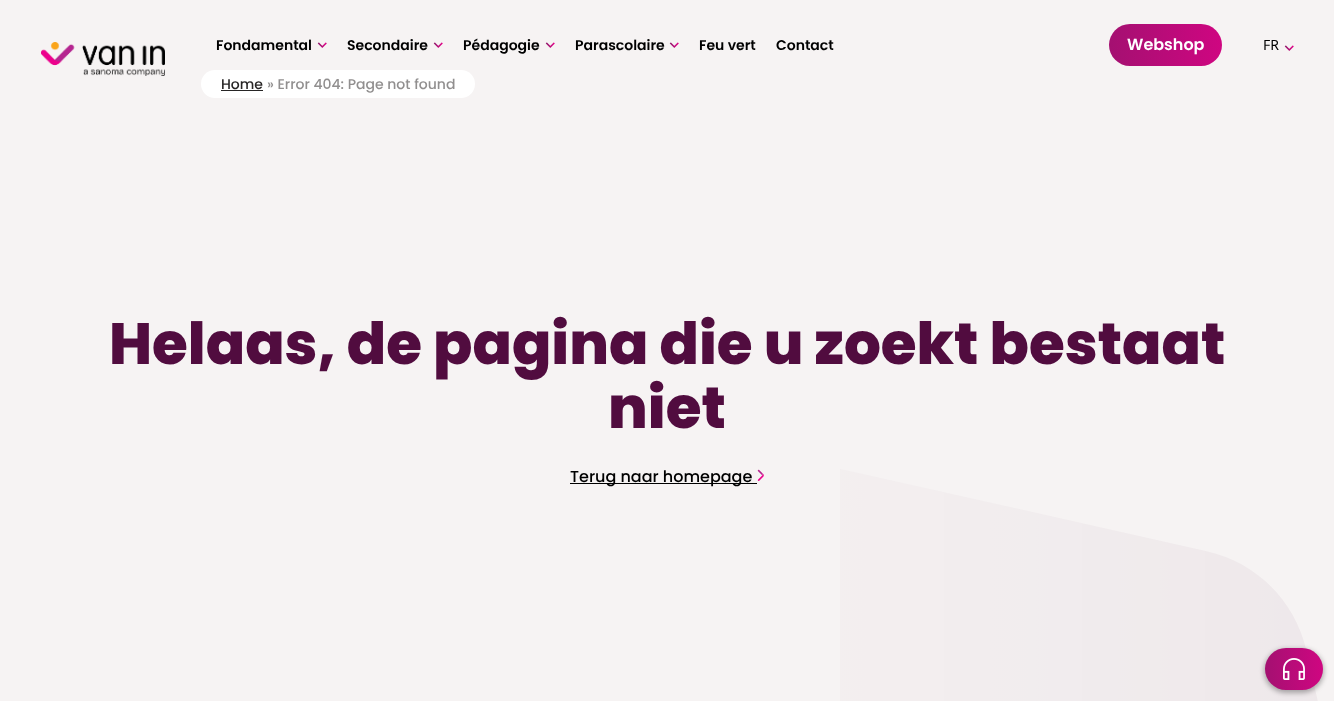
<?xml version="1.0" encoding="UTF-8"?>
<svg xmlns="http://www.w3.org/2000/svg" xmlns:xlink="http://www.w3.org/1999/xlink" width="1334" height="701">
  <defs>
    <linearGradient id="g1" gradientUnits="userSpaceOnUse" x1="1109" y1="45" x2="1222" y2="45"><stop offset="0" stop-color="#a41071" /><stop offset="1" stop-color="#cf0681" /></linearGradient>
    <linearGradient id="g2" gradientUnits="userSpaceOnUse" x1="1265" y1="669" x2="1323" y2="669"><stop offset="0" stop-color="#a41071" /><stop offset="1" stop-color="#cf0681" /></linearGradient>
  </defs>
  <rect width="100%" height="100%" fill="#f6f3f3" />
  <image x="840" y="469" width="478" height="232" xlink:href="image1.png" />
  <image x="41" y="42" width="124" height="34" xlink:href="image2.png" />
  <image x="317" y="42" width="10" height="6" xlink:href="image3.png" />
  <image x="433" y="42" width="10" height="6" xlink:href="image3.png" />
  <image x="545" y="42" width="10" height="6" xlink:href="image3.png" />
  <image x="669" y="42" width="10" height="6" xlink:href="image3.png" />
  <rect x="1109" y="24" width="113" height="42" rx="21" fill="url(#g1)" />
  <rect x="1264" y="649" width="60" height="44" rx="22" fill="#000000" fill-opacity="0.3" filter="blur(2.5px)" />
  <rect x="1265" y="648" width="58" height="42" rx="21" fill="url(#g2)" />
  <image x="1283" y="658" width="22" height="22" xlink:href="image4.png" />
  <image x="1284" y="45" width="10" height="6" xlink:href="image3.png" />
  <rect x="201" y="70" width="274" height="28" rx="14" fill="#ffffff" />
  <rect x="221" y="90" width="42" height="1" fill="#272525" />
  <rect x="570" y="483" width="187" height="1" fill="#000000" />
  <image x="757" y="469" width="7" height="12" xlink:href="image5.png" />
  <text x="216" y="50" style="font-family: Poppins; font-size: 14px; font-weight: 600; fill: #000000">Fondamental</text>
  <text x="347" y="50" style="font-family: Poppins; font-size: 14px; font-weight: 600; fill: #000000">Secondaire</text>
  <text x="463" y="50" style="font-family: Poppins; font-size: 14px; font-weight: 600; fill: #000000">Pédagogie</text>
  <text x="575" y="50" style="font-family: Poppins; font-size: 14px; font-weight: 600; fill: #000000">Parascolaire</text>
  <text x="699" y="50" style="font-family: Poppins; font-size: 14px; font-weight: 600; fill: #000000">Feu vert</text>
  <text x="776" y="50" style="font-family: Poppins; font-size: 14px; font-weight: 600; fill: #000000">Contact</text>
  <text x="1127" y="50" style="font-family: Poppins; font-size: 16px; font-weight: 600; fill: #ffffff">Webshop</text>
  <text x="1263" y="50" style="font-family: Noto Sans; font-size: 14px; fill: #000000">FR</text>
  <text x="221" y="89" style="font-family: Poppins; font-size: 14px; font-weight: 500; fill: #272525">Home</text>
  <text x="267" y="89" style="font-family: Poppins; font-size: 14px; font-weight: 500; fill: #918f8f">» Error 404: Page not found</text>
  <text x="109" y="364" style="font-family: Poppins; font-size: 58px; font-weight: 800; fill: #510c3f">Helaas, de pagina die u zoekt bestaat</text>
  <text x="608" y="428" style="font-family: Poppins; font-size: 58px; font-weight: 800; fill: #510c3f">niet</text>
  <text x="570" y="482" style="font-family: Poppins; font-size: 16px; font-weight: 500; fill: #000000">Terug naar homepage</text>
</svg>
